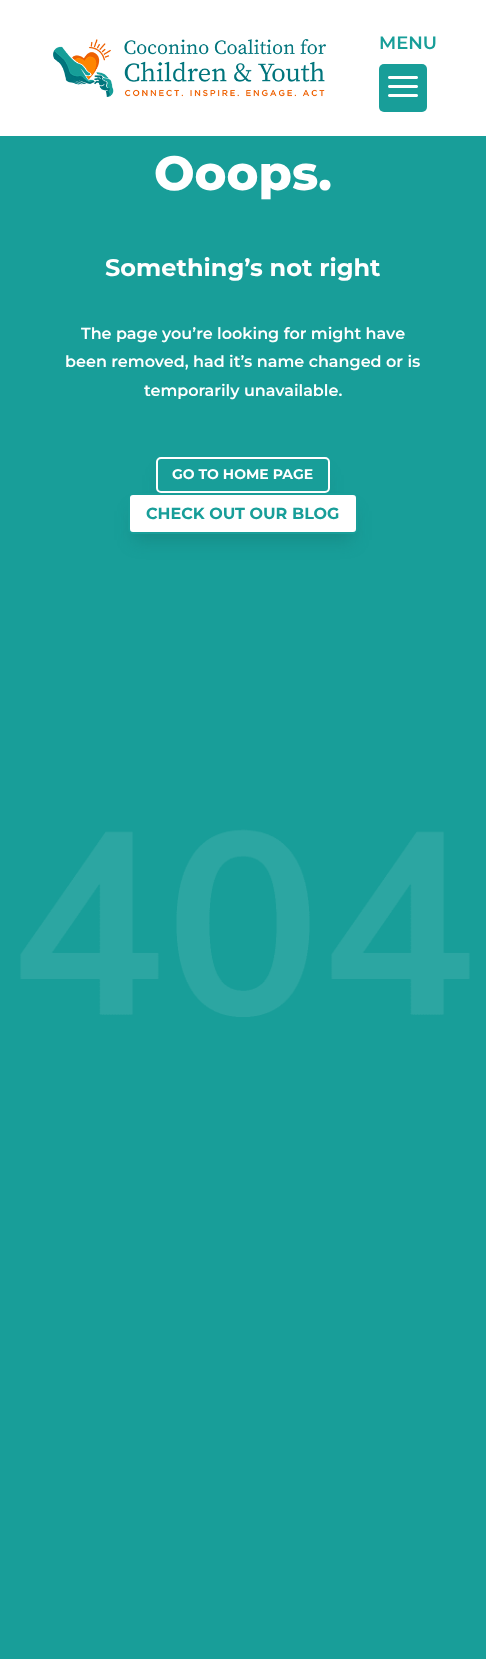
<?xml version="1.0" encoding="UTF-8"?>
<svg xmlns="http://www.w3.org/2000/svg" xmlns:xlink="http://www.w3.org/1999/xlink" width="486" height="1659">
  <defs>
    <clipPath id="clip1"><path d="M 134 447 h 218 v 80 h -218 z m 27 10 h 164 c 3 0 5 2 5 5 v 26 c 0 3 -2 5 -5 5 h -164 c -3 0 -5 -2 -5 -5 v -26 c 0 -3 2 -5 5 -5 z" clip-rule="evenodd" /></clipPath>
  </defs>
  <rect width="100%" height="100%" fill="#189e99" />
  <rect width="486" height="136" fill="#ffffff" />
  <image x="53" y="39" width="273" height="58" xlink:href="image1.png" />
  <rect x="379" y="64" width="48" height="48" rx="5" fill="#189e99" />
  <image x="388" y="76" width="30" height="21" xlink:href="image2.png" />
  <image x="20" y="829" width="450" height="188" xlink:href="image3.png" />
  <g clip-path="url(#clip1)">
    <rect x="162" y="475" width="162" height="24" fill="#0e5f5c" fill-opacity="0.3" filter="blur(9px)" />
  </g>
  <rect x="157" y="458" width="172" height="34" rx="4" fill="none" stroke="#ffffff" stroke-width="2" />
  <rect x="134" y="511" width="218" height="29" fill="#0e5f5c" fill-opacity="0.3" filter="blur(9px)" />
  <rect x="129" y="494" width="228" height="39" rx="4" fill="#ffffff" stroke="#189e99" stroke-width="2" />
  <text x="379" y="49" style="font-family: Montserrat; font-size: 18px; font-weight: 600; fill: #189e99">MENU</text>
  <text x="154" y="190" style="font-family: Montserrat; font-size: 48px; font-weight: 800; fill: #ffffff">Ooops.</text>
  <text x="105" y="276" style="font-family: Montserrat; font-size: 24px; font-weight: bold; fill: #ffffff">Something’s not right</text>
  <text x="81" y="339" style="font-family: Montserrat; font-size: 16px; font-weight: 600; fill: #ffffff">The page you’re looking for might have</text>
  <text x="65" y="367" style="font-family: Montserrat; font-size: 16px; font-weight: 600; fill: #ffffff">been removed, had it’s name changed or is</text>
  <text x="144" y="396" style="font-family: Montserrat; font-size: 16px; font-weight: 600; fill: #ffffff">temporarily unavailable.</text>
  <text x="172" y="479" style="font-family: Montserrat; font-size: 14px; font-weight: bold; fill: #ffffff">GO TO HOME PAGE</text>
  <text x="146" y="519" style="font-family: Montserrat; font-size: 16px; font-weight: bold; fill: #189e99">CHECK OUT OUR BLOG</text>
</svg>
